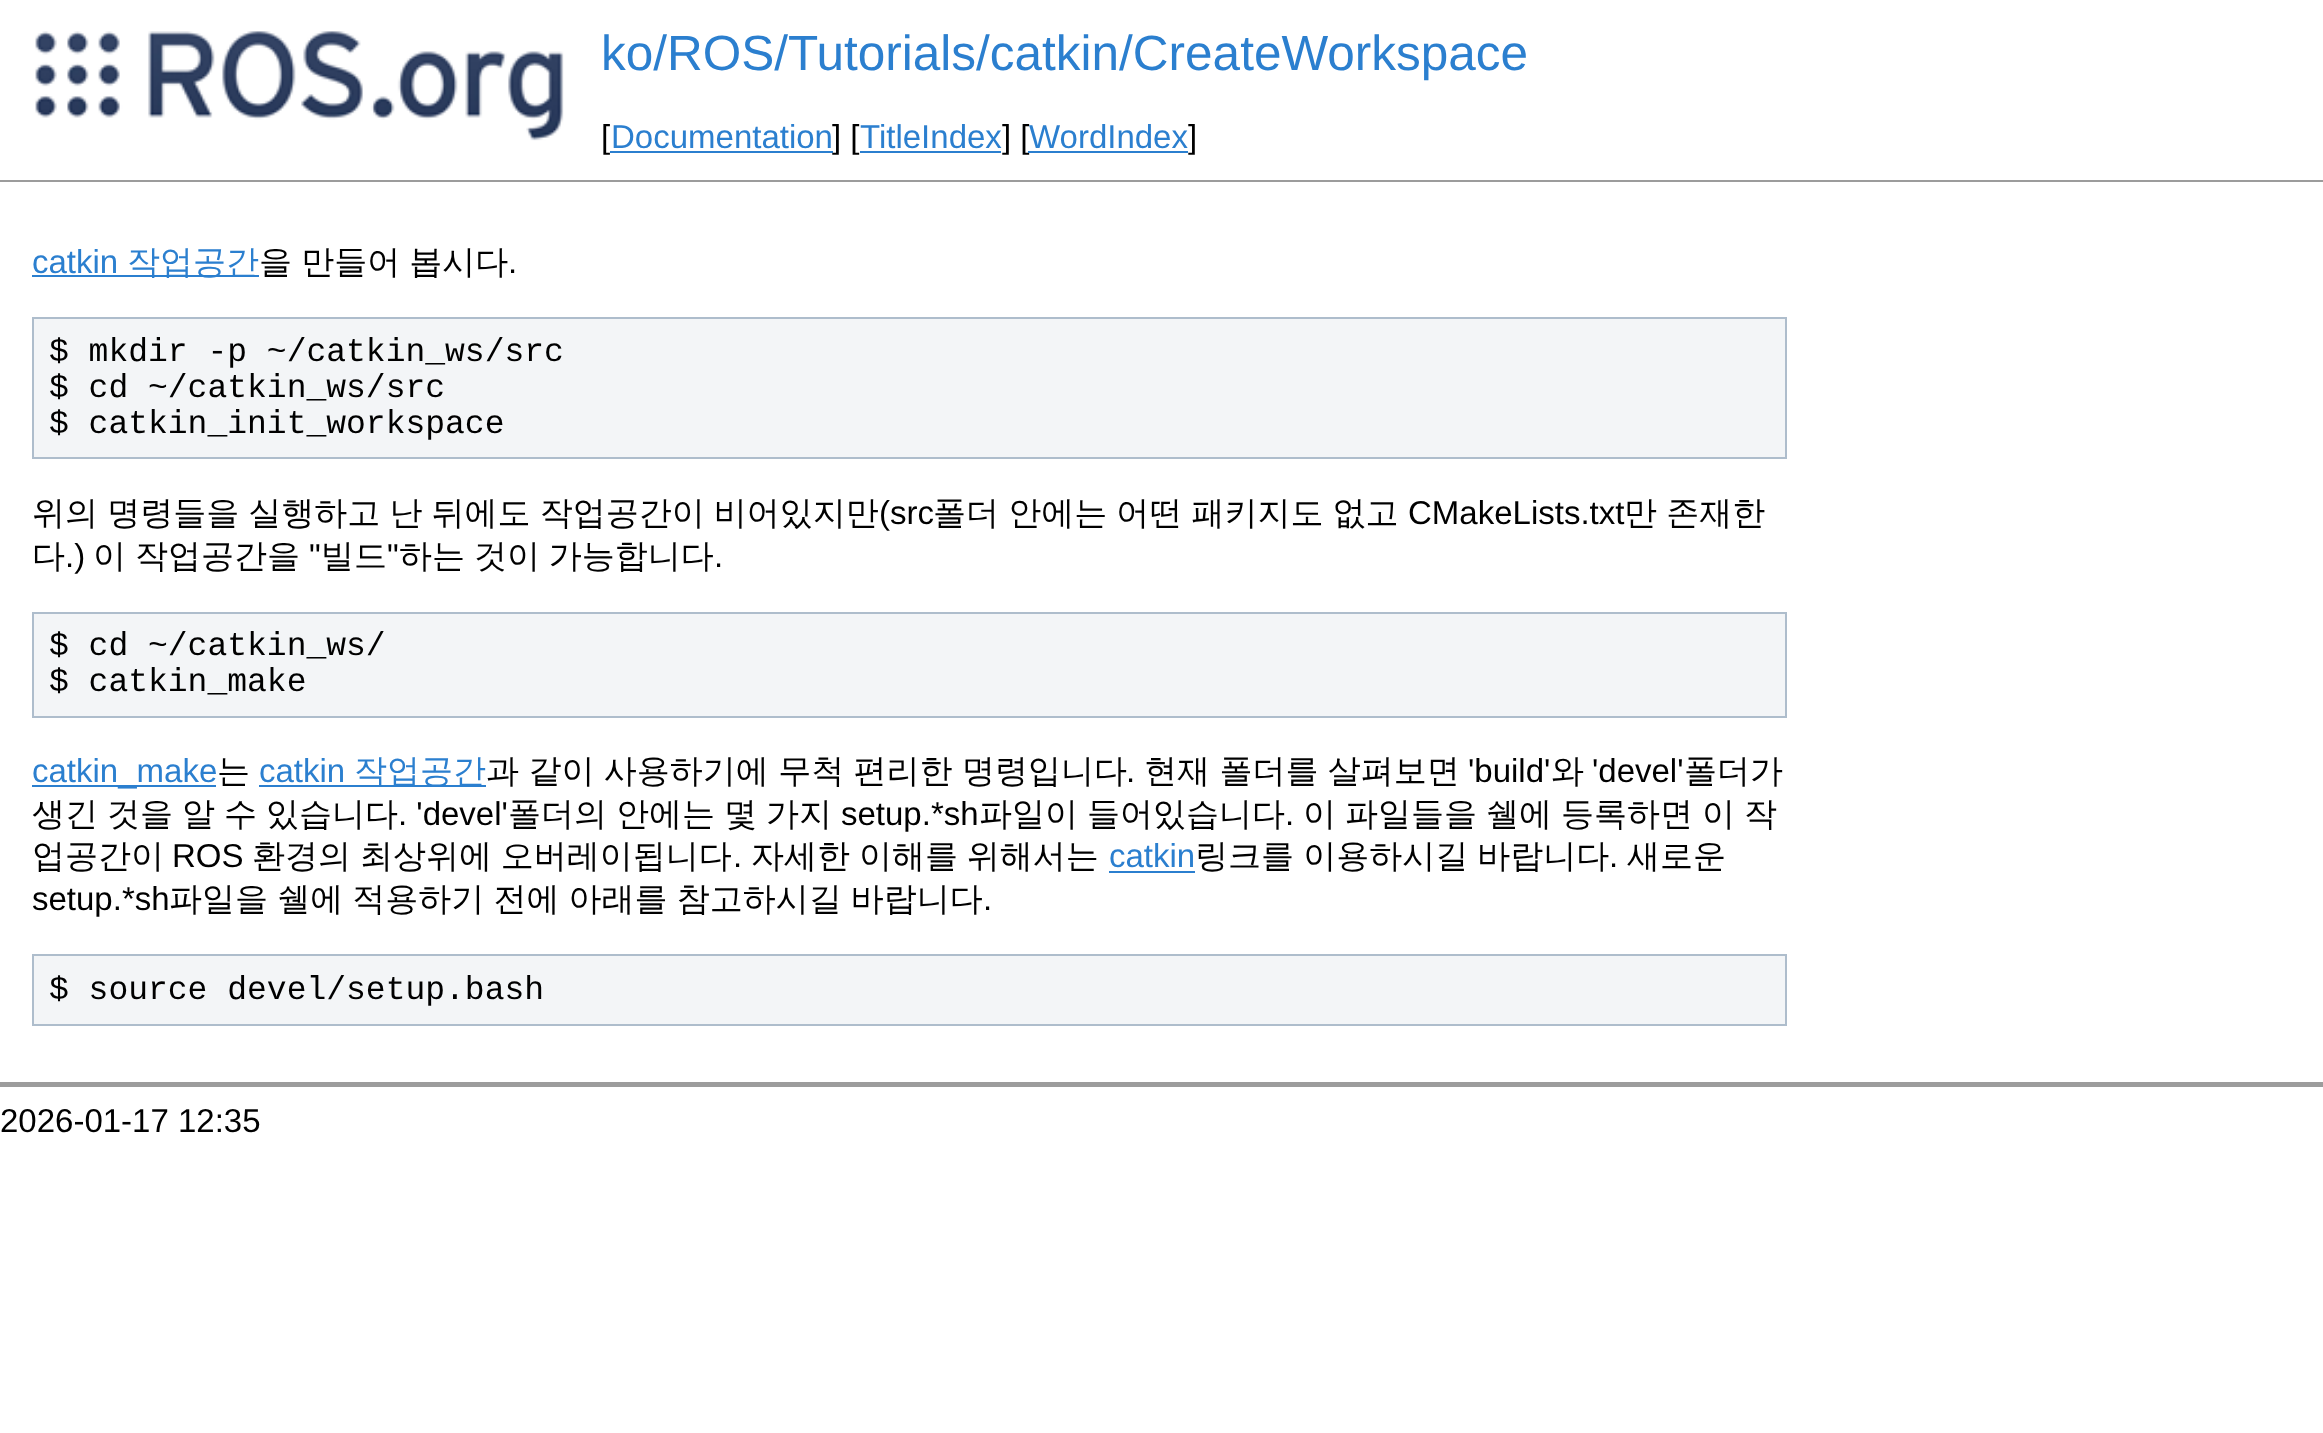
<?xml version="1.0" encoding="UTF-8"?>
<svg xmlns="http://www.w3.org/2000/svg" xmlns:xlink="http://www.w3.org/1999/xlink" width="2323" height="1433">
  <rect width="100%" height="100%" fill="#ffffff" />
  <image x="35" y="31" width="529" height="110" xlink:href="image1.png" />
  <rect x="860" y="151" width="141" height="2" fill="#2b7fcf" />
  <rect y="180" width="2323" height="2" fill="#9c9c9c" />
  <rect x="32" y="275" width="227" height="2" fill="#2b7fcf" />
  <rect x="33" y="318" width="1753" height="140" fill="#f3f5f7" stroke="#aebdcc" stroke-width="2" />
  <rect x="33" y="613" width="1753" height="104" fill="#f3f5f7" stroke="#aebdcc" stroke-width="2" />
  <rect x="32" y="785" width="184" height="2" fill="#2b7fcf" />
  <rect x="259" y="785" width="227" height="2" fill="#2b7fcf" />
  <rect x="1109" y="871" width="86" height="2" fill="#2b7fcf" />
  <rect x="33" y="955" width="1753" height="70" fill="#f3f5f7" stroke="#aebdcc" stroke-width="2" />
  <rect y="1082" width="2323" height="5" fill="#9c9c9c" />
  <text x="601" y="70" style="font-family: Liberation Sans; font-size: 49.5px; fill: #2b7fcf">ko/ROS/Tutorials/catkin/CreateWorkspace</text>
  <text x="601" y="148" style="font-family: Liberation Sans; font-size: 33px; fill: #000000">[</text>
  <text x="611" y="148" style="font-family: Liberation Sans; font-size: 33px; fill: #2b7fcf">Documentation</text>
  <rect x="610" y="151" width="223" height="2" fill="#2b7fcf" />
  <text x="832" y="148" style="font-family: Liberation Sans; font-size: 33px; fill: #000000">] [</text>
  <text x="860" y="148" style="font-family: Liberation Sans; font-size: 33px; fill: #2b7fcf">TitleIndex</text>
  <text x="1002" y="148" style="font-family: Liberation Sans; font-size: 33px; fill: #000000">] [</text>
  <text x="1029" y="148" style="font-family: Liberation Sans; font-size: 33px; fill: #2b7fcf">WordIndex</text>
  <rect x="1028" y="151" width="160" height="2" fill="#2b7fcf" />
  <text x="1188" y="148" style="font-family: Liberation Sans; font-size: 33px; fill: #000000">]</text>
  <text x="32" y="273" style="font-family: Liberation Sans; font-size: 33px; fill: #2b7fcf">catkin</text>
  <text x="127" y="273" style="font-family: WenQuanYi Zen Hei; font-size: 33px; font-weight: 500; fill: #2b7fcf">작업공간</text>
  <text x="259" y="273" word-spacing="-0.75" style="font-family: WenQuanYi Zen Hei; font-size: 33px; font-weight: 500; fill: #000000">을 만들어 봅시다</text>
  <text x="508" y="273" style="font-family: Liberation Sans; font-size: 33px; fill: #000000">.</text>
  <text x="49" y="361" style="font-family: Liberation Mono; font-size: 33px; fill: #000000">$ mkdir -p ~/catkin_ws/src</text>
  <text x="49" y="397" style="font-family: Liberation Mono; font-size: 33px; fill: #000000">$ cd ~/catkin_ws/src</text>
  <text x="49" y="433" style="font-family: Liberation Mono; font-size: 33px; fill: #000000">$ catkin_init_workspace</text>
  <text x="32" y="524" word-spacing="-0.75" style="font-family: WenQuanYi Zen Hei; font-size: 33px; font-weight: 500; fill: #000000">위의 명령들을 실행하고 난 뒤에도 작업공간이 비어있지만</text>
  <text x="879" y="524" style="font-family: Liberation Sans; font-size: 33px; fill: #000000">(src</text>
  <text x="933" y="524" word-spacing="-0.75" style="font-family: WenQuanYi Zen Hei; font-size: 33px; font-weight: 500; fill: #000000">폴더 안에는 어떤 패키지도 없고</text>
  <text x="1408" y="524" style="font-family: Liberation Sans; font-size: 33px; fill: #000000">CMakeLists.txt</text>
  <text x="1624" y="524" word-spacing="-0.75" style="font-family: WenQuanYi Zen Hei; font-size: 33px; font-weight: 500; fill: #000000">만 존재한</text>
  <text x="32" y="567" style="font-family: WenQuanYi Zen Hei; font-size: 33px; font-weight: 500; fill: #000000">다</text>
  <text x="65" y="567" style="font-family: Liberation Sans; font-size: 33px; fill: #000000">.)</text>
  <text x="93" y="567" word-spacing="-1" style="font-family: WenQuanYi Zen Hei; font-size: 33px; font-weight: 500; fill: #000000">이 작업공간을</text>
  <text x="309" y="567" style="font-family: Liberation Sans; font-size: 33px; fill: #000000">"</text>
  <text x="321" y="567" style="font-family: WenQuanYi Zen Hei; font-size: 33px; font-weight: 500; fill: #000000">빌드</text>
  <text x="387" y="567" style="font-family: Liberation Sans; font-size: 33px; fill: #000000">"</text>
  <text x="399" y="567" word-spacing="-1" style="font-family: WenQuanYi Zen Hei; font-size: 33px; font-weight: 500; fill: #000000">하는 것이 가능합니다</text>
  <text x="714" y="567" style="font-family: Liberation Sans; font-size: 33px; fill: #000000">.</text>
  <text x="49" y="655" style="font-family: Liberation Mono; font-size: 33px; fill: #000000">$ cd ~/catkin_ws/</text>
  <text x="49" y="691" style="font-family: Liberation Mono; font-size: 33px; fill: #000000">$ catkin_make</text>
  <text x="32" y="782" style="font-family: Liberation Sans; font-size: 33px; fill: #2b7fcf">catkin_make</text>
  <text x="217" y="782" style="font-family: WenQuanYi Zen Hei; font-size: 33px; font-weight: 500; fill: #000000">는</text>
  <text x="259" y="782" style="font-family: Liberation Sans; font-size: 33px; fill: #2b7fcf">catkin</text>
  <text x="354" y="782" style="font-family: WenQuanYi Zen Hei; font-size: 33px; font-weight: 500; fill: #2b7fcf">작업공간</text>
  <text x="486" y="782" word-spacing="-0.5" style="font-family: WenQuanYi Zen Hei; font-size: 33px; font-weight: 500; fill: #000000">과 같이 사용하기에 무척 편리한 명령입니다</text>
  <text x="1126" y="782" style="font-family: Liberation Sans; font-size: 33px; fill: #000000">.</text>
  <text x="1144" y="782" word-spacing="-0.5" style="font-family: WenQuanYi Zen Hei; font-size: 33px; font-weight: 500; fill: #000000">현재 폴더를 살펴보면</text>
  <text x="1468" y="782" style="font-family: Liberation Sans; font-size: 33px; fill: #000000">'build'</text>
  <text x="1551" y="782" style="font-family: WenQuanYi Zen Hei; font-size: 33px; font-weight: 500; fill: #000000">와</text>
  <text x="1592" y="782" style="font-family: Liberation Sans; font-size: 33px; fill: #000000">'devel'</text>
  <text x="1684" y="782" style="font-family: WenQuanYi Zen Hei; font-size: 33px; font-weight: 500; fill: #000000">폴더가</text>
  <text x="32" y="825" style="font-family: WenQuanYi Zen Hei; font-size: 33px; font-weight: 500; fill: #000000">생긴</text>
  <text x="107" y="825" style="font-family: WenQuanYi Zen Hei; font-size: 33px; font-weight: 500; fill: #000000">것을</text>
  <text x="182" y="825" style="font-family: WenQuanYi Zen Hei; font-size: 33px; font-weight: 500; fill: #000000">알</text>
  <text x="224" y="825" style="font-family: WenQuanYi Zen Hei; font-size: 33px; font-weight: 500; fill: #000000">수</text>
  <text x="266" y="825" style="font-family: WenQuanYi Zen Hei; font-size: 33px; font-weight: 500; fill: #000000">있습니다</text>
  <text x="398" y="825" style="font-family: Liberation Sans; font-size: 33px; fill: #000000">. 'devel'</text>
  <text x="508" y="825" style="font-family: WenQuanYi Zen Hei; font-size: 33px; font-weight: 500; fill: #000000">폴더의</text>
  <text x="616" y="825" style="font-family: WenQuanYi Zen Hei; font-size: 33px; font-weight: 500; fill: #000000">안에는</text>
  <text x="724" y="825" style="font-family: WenQuanYi Zen Hei; font-size: 33px; font-weight: 500; fill: #000000">몇</text>
  <text x="766" y="825" style="font-family: WenQuanYi Zen Hei; font-size: 33px; font-weight: 500; fill: #000000">가지</text>
  <text x="841" y="825" style="font-family: Liberation Sans; font-size: 33px; fill: #000000">setup.*sh</text>
  <text x="979" y="825" style="font-family: WenQuanYi Zen Hei; font-size: 33px; font-weight: 500; fill: #000000">파일이</text>
  <text x="1087" y="825" style="font-family: WenQuanYi Zen Hei; font-size: 33px; font-weight: 500; fill: #000000">들어있습니다</text>
  <text x="1285" y="825" style="font-family: Liberation Sans; font-size: 33px; fill: #000000">.</text>
  <text x="1303" y="825" style="font-family: WenQuanYi Zen Hei; font-size: 33px; font-weight: 500; fill: #000000">이</text>
  <text x="1345" y="825" style="font-family: WenQuanYi Zen Hei; font-size: 33px; font-weight: 500; fill: #000000">파일들을</text>
  <text x="1486" y="825" style="font-family: WenQuanYi Zen Hei; font-size: 33px; font-weight: 500; fill: #000000">쉘에</text>
  <text x="1561" y="825" style="font-family: WenQuanYi Zen Hei; font-size: 33px; font-weight: 500; fill: #000000">등록하면</text>
  <text x="1702" y="825" style="font-family: WenQuanYi Zen Hei; font-size: 33px; font-weight: 500; fill: #000000">이</text>
  <text x="1744" y="825" style="font-family: WenQuanYi Zen Hei; font-size: 33px; font-weight: 500; fill: #000000">작</text>
  <text x="32" y="867" style="font-family: WenQuanYi Zen Hei; font-size: 33px; font-weight: 500; fill: #000000">업공간이</text>
  <text x="172" y="867" style="font-family: Liberation Sans; font-size: 33px; fill: #000000">ROS</text>
  <text x="252" y="867" word-spacing="-1" style="font-family: WenQuanYi Zen Hei; font-size: 33px; font-weight: 500; fill: #000000">환경의 최상위에 오버레이됩니다</text>
  <text x="733" y="867" style="font-family: Liberation Sans; font-size: 33px; fill: #000000">.</text>
  <text x="751" y="867" word-spacing="-1" style="font-family: WenQuanYi Zen Hei; font-size: 33px; font-weight: 500; fill: #000000">자세한 이해를 위해서는</text>
  <text x="1109" y="867" style="font-family: Liberation Sans; font-size: 33px; fill: #2b7fcf">catkin</text>
  <text x="1195" y="867" word-spacing="-0.75" style="font-family: WenQuanYi Zen Hei; font-size: 33px; font-weight: 500; fill: #000000">링크를 이용하시길 바랍니다</text>
  <text x="1609" y="867" style="font-family: Liberation Sans; font-size: 33px; fill: #000000">.</text>
  <text x="1627" y="867" style="font-family: WenQuanYi Zen Hei; font-size: 33px; font-weight: 500; fill: #000000">새로운</text>
  <text x="32" y="910" style="font-family: Liberation Sans; font-size: 33px; fill: #000000">setup.*sh</text>
  <text x="169" y="910" word-spacing="-0.75" style="font-family: WenQuanYi Zen Hei; font-size: 33px; font-weight: 500; fill: #000000">파일을 쉘에 적용하기 전에 아래를 참고하시길 바랍니다</text>
  <text x="983" y="910" style="font-family: Liberation Sans; font-size: 33px; fill: #000000">.</text>
  <text x="49" y="999" style="font-family: Liberation Mono; font-size: 33px; fill: #000000">$ source devel/setup.bash</text>
  <text x="0" y="1132" style="font-family: Liberation Sans; font-size: 33px; fill: #000000">2026-01-17 12:35</text>
</svg>
